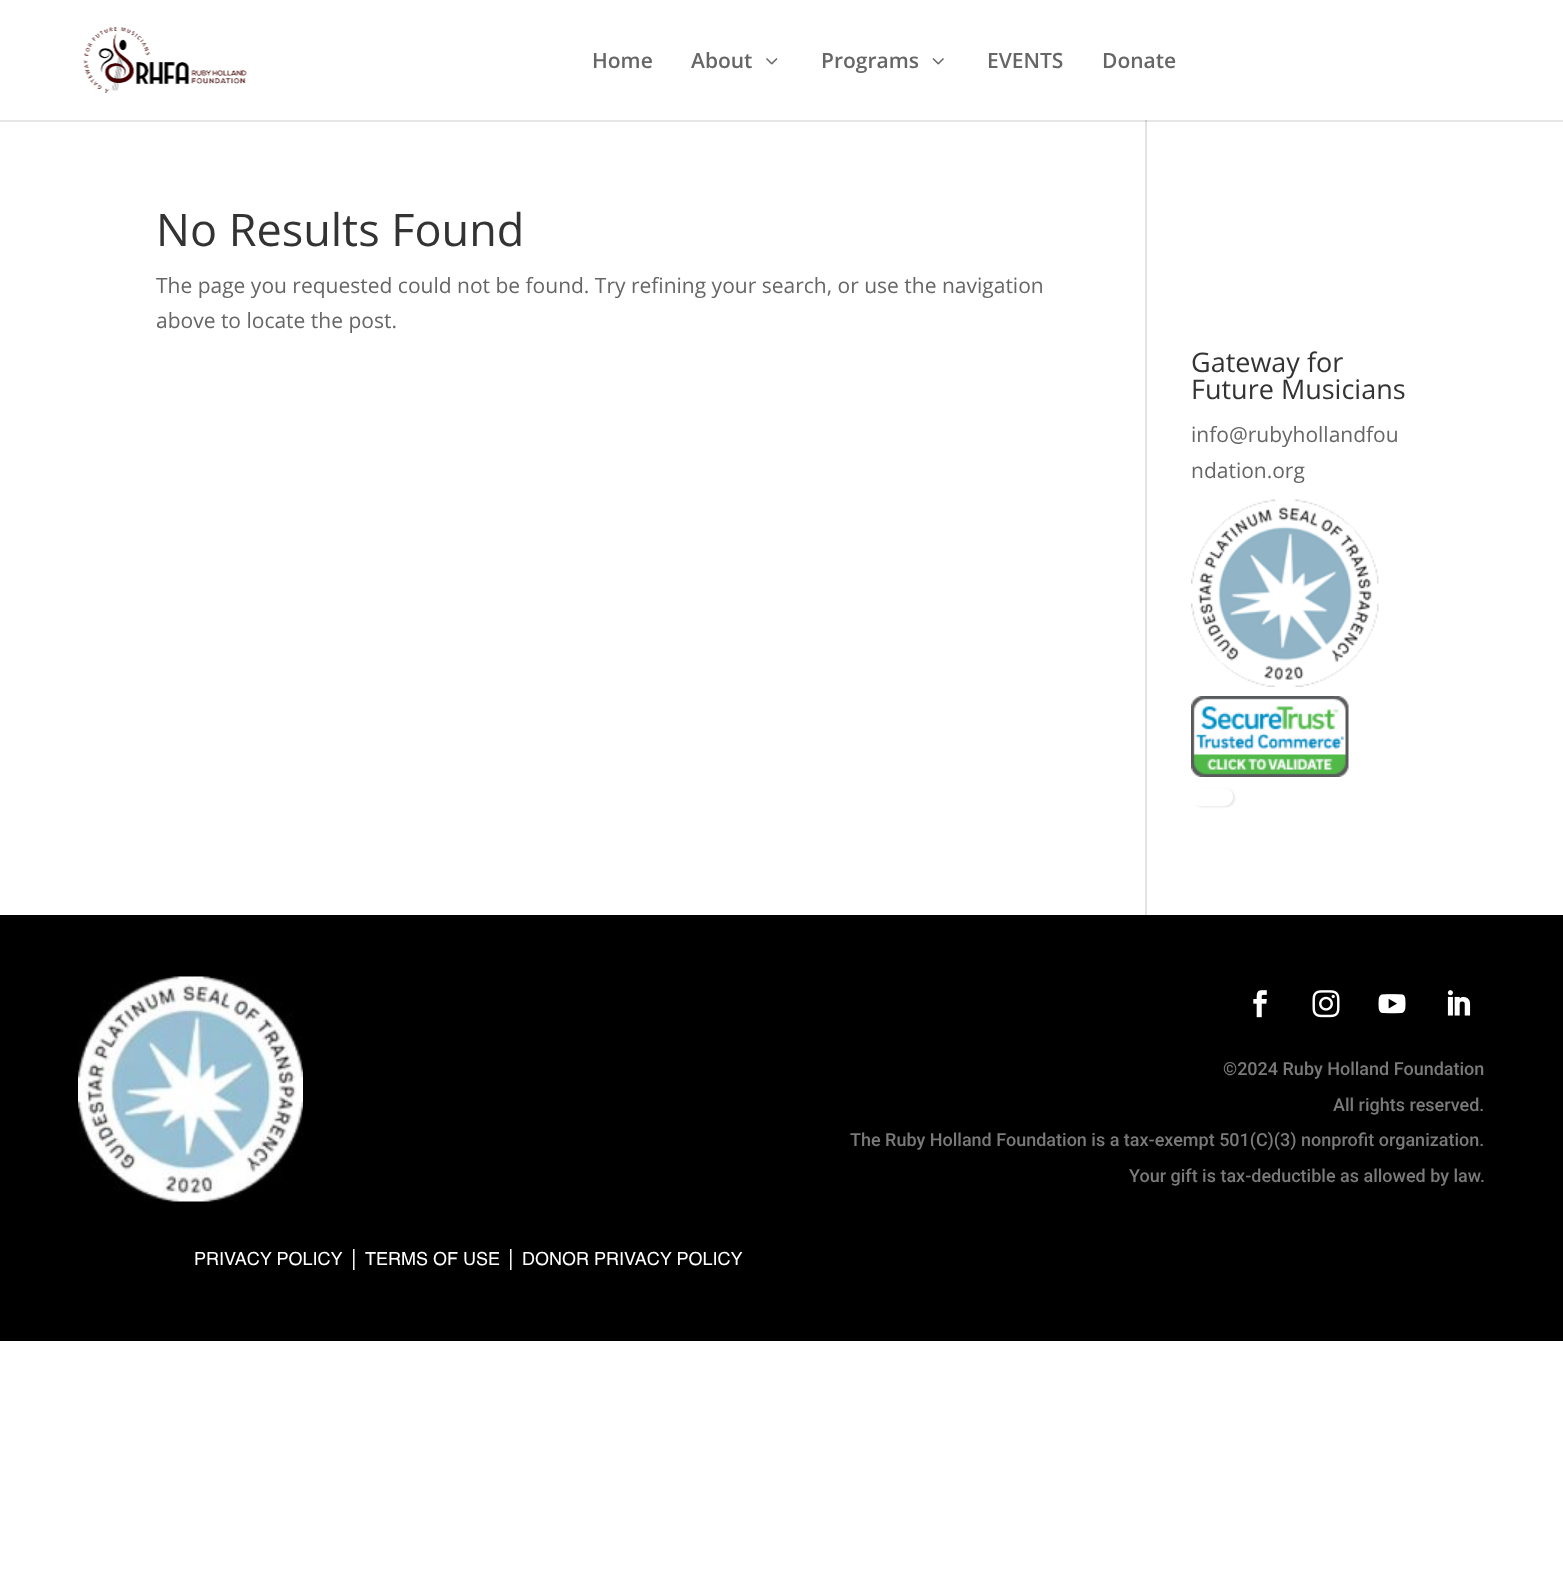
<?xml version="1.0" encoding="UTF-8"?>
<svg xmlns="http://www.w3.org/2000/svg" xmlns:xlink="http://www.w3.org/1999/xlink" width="1563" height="1595">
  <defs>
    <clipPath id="clip1"><path d="M 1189 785 h 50 v 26 h -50 z m 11 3 h 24 c 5 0 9 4 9 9 c 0 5 -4 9 -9 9 h -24 c -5 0 -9 -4 -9 -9 c 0 -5 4 -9 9 -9 z" clip-rule="evenodd" /></clipPath>
  </defs>
  <rect width="100%" height="100%" fill="#ffffff" />
  <rect y="120" width="1563" height="2" fill="#e6e6e6" />
  <image x="83" y="27" width="164" height="66" xlink:href="image1.png" />
  <image x="766" y="58" width="12" height="7" xlink:href="image2.png" />
  <image x="932" y="58" width="12" height="7" xlink:href="image3.png" />
  <rect x="1145" y="120" width="2" height="795" fill="#e2e2e2" />
  <rect x="1145" y="120" width="2" height="2" fill="#cbcbcb" />
  <image x="1191" y="499" width="188" height="188" xlink:href="image4.png" />
  <image x="1191" y="696" width="158" height="81" xlink:href="image5.png" />
  <g clip-path="url(#clip1)">
    <rect x="1193" y="789" width="42" height="18" rx="9" fill="#000000" fill-opacity="0.1" filter="blur(1px)" />
  </g>
  <path d="M 1200 789 h 24 c 5 0 9 4 9 8 c 1 -11 -14 -9 -21 -9 c -7 0 -22 -2 -21 9 c 0 -4 4 -8 9 -8 z" fill="#ffffff" fill-opacity="0.4" />
  <rect y="915" width="1563" height="426" fill="#000000" />
  <image x="1253" y="990" width="14" height="28" xlink:href="image6.png" />
  <image x="1312" y="990" width="28" height="28" xlink:href="image7.png" />
  <image x="1378" y="994" width="28" height="20" xlink:href="image8.png" />
  <image x="1447" y="990" width="24" height="26" xlink:href="image9.png" />
  <image x="78" y="976" width="225" height="226" xlink:href="image10.png" />
  <text x="592" y="68" style="font-family: Open Sans; font-size: 21px; font-weight: 600; fill: #666666">Home</text>
  <text x="691" y="68" style="font-family: Open Sans; font-size: 21px; font-weight: 600; fill: #666666">About</text>
  <text x="821" y="68" style="font-family: Open Sans; font-size: 21px; font-weight: 600; fill: #666666">Programs</text>
  <text x="987" y="68" style="font-family: Open Sans; font-size: 21px; font-weight: 600; fill: #666666">EVENTS</text>
  <text x="1102" y="68" style="font-family: Open Sans; font-size: 21px; font-weight: 600; fill: #666666">Donate</text>
  <text x="156" y="246" style="font-family: Open Sans; font-size: 45px; fill: #333333">No Results Found</text>
  <text x="156" y="293" style="font-family: Open Sans; font-size: 21px; fill: #666666">The page you requested could not be found. Try refining your search, or use the navigation</text>
  <text x="156" y="328" style="font-family: Open Sans; font-size: 21px; fill: #666666">above to locate the post.</text>
  <text x="1191" y="372" style="font-family: Open Sans; font-size: 27px; fill: #333333">Gateway for</text>
  <text x="1191" y="399" style="font-family: Open Sans; font-size: 27px; fill: #333333">Future Musicians</text>
  <text x="1191" y="442" style="font-family: Open Sans; font-size: 21px; fill: #666666">info@rubyhollandfou</text>
  <text x="1191" y="478" style="font-family: Open Sans; font-size: 21px; fill: #666666">ndation.org</text>
  <text x="1223" y="1075" style="font-family: Roboto; font-size: 18px; font-weight: 500; fill: #7a7a7a">©2024 Ruby Holland Foundation</text>
  <text x="1333" y="1111" style="font-family: Roboto; font-size: 18px; font-weight: 500; fill: #7a7a7a">All rights reserved.</text>
  <text x="850" y="1146" style="font-family: Roboto; font-size: 18px; font-weight: 500; fill: #7a7a7a">The Ruby Holland Foundation is a tax-exempt 501(C)(3) nonprofit organization.</text>
  <text x="1129" y="1182" style="font-family: Roboto; font-size: 18px; font-weight: 500; fill: #7a7a7a">Your gift is tax-deductible as allowed by law.</text>
  <text x="194" y="1265" style="font-family: Helvetica; font-size: 18px; fill: #ffffff">PRIVACY POLICY</text>
  <text x="348" y="1265" style="font-family: Open Sans; font-size: 21px; fill: #ffffff">|</text>
  <text x="365" y="1265" style="font-family: Helvetica; font-size: 18px; fill: #ffffff">TERMS OF USE</text>
  <text x="505" y="1265" style="font-family: Open Sans; font-size: 21px; fill: #ffffff">|</text>
  <text x="522" y="1265" style="font-family: Helvetica; font-size: 18px; fill: #ffffff">DONOR PRIVACY POLICY</text>
</svg>
